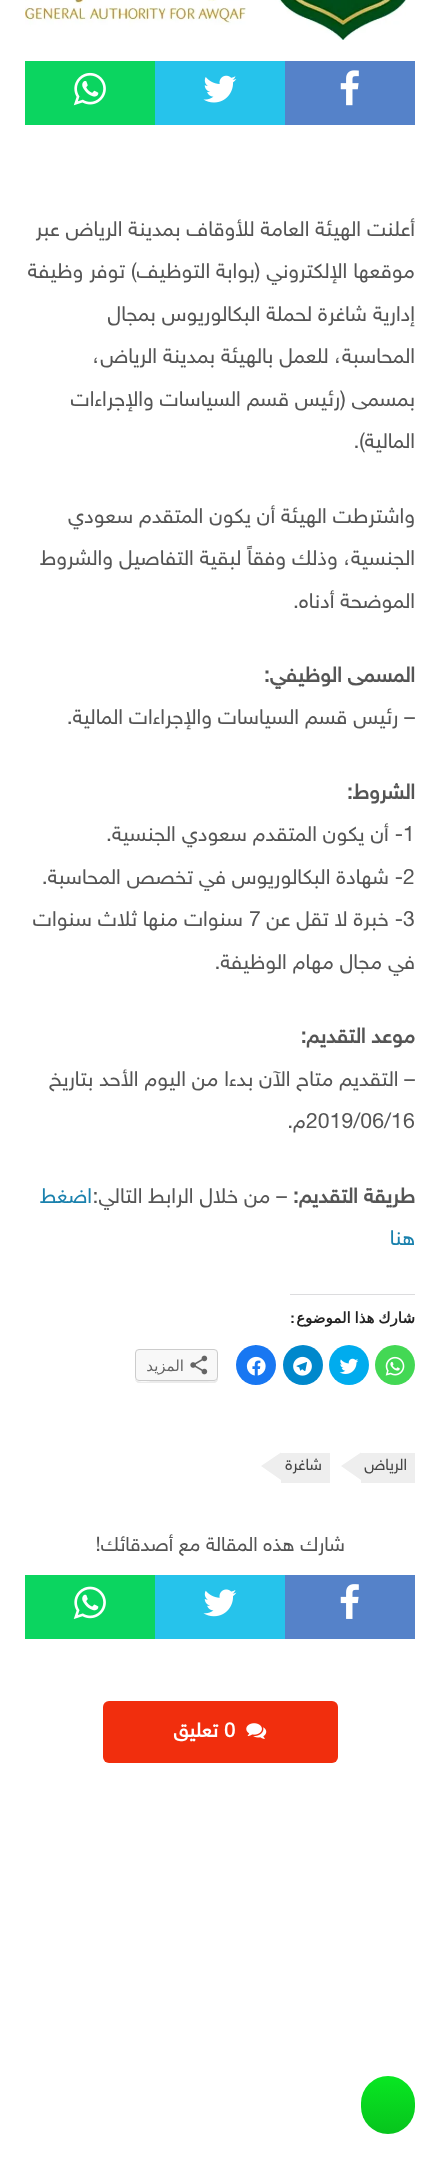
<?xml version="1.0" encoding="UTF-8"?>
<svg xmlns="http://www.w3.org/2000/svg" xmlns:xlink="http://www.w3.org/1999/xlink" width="440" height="2158">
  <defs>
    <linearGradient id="g1" gradientUnits="userSpaceOnUse" x1="388" y1="2076" x2="388" y2="2134"><stop offset="0" stop-color="#08e722" /><stop offset="1" stop-color="#07c41d" /></linearGradient>
  </defs>
  <rect width="100%" height="100%" fill="#ffffff" />
  <image x="25" y="0" width="381" height="40" xlink:href="image1.png" />
  <rect x="285" y="61" width="130" height="64" fill="#5582c9" />
  <image x="340" y="70" width="19" height="36" xlink:href="image2.png" />
  <rect x="155" y="61" width="130" height="64" fill="#26c3eb" />
  <image x="203" y="75" width="34" height="28" xlink:href="image3.png" />
  <rect x="25" y="61" width="130" height="64" fill="#0bd560" />
  <image x="73" y="72" width="33" height="34" xlink:href="image4.png" />
  <rect x="290" y="1294" width="125" height="1" fill="#dcdcde" />
  <circle cx="395" cy="1365" r="20" fill="#43d854" />
  <image x="385" y="1356" width="20" height="20" xlink:href="image5.png" />
  <circle cx="349" cy="1365" r="20" fill="#00acee" />
  <image x="339" y="1358" width="20" height="16" xlink:href="image6.png" />
  <circle cx="303" cy="1365" r="20" fill="#0088cc" />
  <image x="293" y="1356" width="19" height="20" xlink:href="image7.png" />
  <circle cx="256" cy="1365" r="20" fill="#1877f2" />
  <image x="246" y="1356" width="20" height="20" xlink:href="image8.png" />
  <path d="M 135 1378 v 1 c 0 2 2 4 4 4 h 75 c 2 0 4 -2 4 -4 v -25 l -1 -2 l 1 17 c 0 15 0 12 -17 12 h -50 c 0 0 -16 3 -16 -3 z" fill="#ebebeb" />
  <rect x="135.5" y="1349.5" width="82" height="31" rx="3.5" fill="#f8f8f8" stroke="#cccccc" />
  <image x="190" y="1355" width="18" height="20" xlink:href="image9.png" />
  <rect x="361" y="1453" width="54" height="30" fill="#eeeeee" />
  <path d="M 361 1452.5 v 27.5 l -20 -14 z" fill="#eeeeee" />
  <rect x="281" y="1453" width="49" height="30" fill="#eeeeee" />
  <path d="M 281 1452.5 v 27.5 l -20 -14 z" fill="#eeeeee" />
  <rect x="285" y="1575" width="130" height="64" fill="#5582c9" />
  <image x="340" y="1584" width="19" height="35" xlink:href="image10.png" />
  <rect x="155" y="1575" width="130" height="64" fill="#26c3eb" />
  <image x="203" y="1589" width="34" height="28" xlink:href="image11.png" />
  <rect x="25" y="1575" width="130" height="64" fill="#0bd560" />
  <image x="73" y="1586" width="33" height="33" xlink:href="image12.png" />
  <rect x="103" y="1701" width="235" height="62" rx="6" fill="#f12e0d" />
  <image x="246" y="1723" width="21" height="16" xlink:href="image13.png" />
  <rect x="361" y="2076" width="54" height="58" rx="27" fill="url(#g1)" />
  <text x="415" y="236" style="font-family: 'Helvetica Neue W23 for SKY'; font-size: 21.25px; direction: rtl; fill: #555555">أعلنت الهيئة العامة للأوقاف بمدينة الرياض عبر</text>
  <text x="415" y="278" style="font-family: 'Helvetica Neue W23 for SKY'; font-size: 21.25px; direction: rtl; fill: #555555">موقعها الإلكتروني (بوابة التوظيف) توفر وظيفة</text>
  <text x="415" y="321" style="font-family: 'Helvetica Neue W23 for SKY'; font-size: 21.25px; direction: rtl; fill: #555555">إدارية شاغرة لحملة البكالوريوس بمجال</text>
  <text x="415" y="363" style="font-family: 'Helvetica Neue W23 for SKY'; font-size: 21.25px; direction: rtl; fill: #555555">المحاسبة، للعمل بالهيئة بمدينة الرياض،</text>
  <text x="415" y="406" style="font-family: 'Helvetica Neue W23 for SKY'; font-size: 21.25px; direction: rtl; fill: #555555">بمسمى (رئيس قسم السياسات والإجراءات</text>
  <text x="415" y="448" style="font-family: 'Helvetica Neue W23 for SKY'; font-size: 21.25px; direction: rtl; fill: #555555">المالية).</text>
  <text x="415" y="523" style="font-family: 'Helvetica Neue W23 for SKY'; font-size: 21.25px; direction: rtl; fill: #555555">واشترطت الهيئة أن يكون المتقدم سعودي</text>
  <text x="415" y="565" style="font-family: 'Helvetica Neue W23 for SKY'; font-size: 21.25px; direction: rtl; fill: #555555">الجنسية، وذلك وفقاً لبقية التفاصيل والشروط</text>
  <text x="415" y="608" style="font-family: 'Helvetica Neue W23 for SKY'; font-size: 21.25px; direction: rtl; fill: #555555">الموضحة أدناه.</text>
  <text x="415" y="682" style="font-family: 'Helvetica Neue W23 for SKY'; font-size: 21.25px; font-weight: bold; direction: rtl; fill: #555555">المسمى الوظيفي:</text>
  <text x="415" y="724" style="font-family: 'Helvetica Neue W23 for SKY'; font-size: 21.25px; direction: rtl; fill: #555555">– رئيس قسم السياسات والإجراءات المالية.</text>
  <text x="415" y="799" style="font-family: 'Helvetica Neue W23 for SKY'; font-size: 21.25px; font-weight: bold; direction: rtl; fill: #555555">الشروط:</text>
  <text x="403" y="841" style="font-family: 'Helvetica Neue W23 for SKY'; font-size: 21.25px; fill: #555555">1</text>
  <text x="403" y="841" style="font-family: 'Helvetica Neue W23 for SKY'; font-size: 21.25px; direction: rtl; fill: #555555">- أن يكون المتقدم سعودي الجنسية.</text>
  <text x="403" y="884" style="font-family: 'Helvetica Neue W23 for SKY'; font-size: 21.25px; fill: #555555">2</text>
  <text x="403" y="884" style="font-family: 'Helvetica Neue W23 for SKY'; font-size: 21.25px; direction: rtl; fill: #555555">- شهادة البكالوريوس في تخصص المحاسبة.</text>
  <text x="403" y="926" style="font-family: 'Helvetica Neue W23 for SKY'; font-size: 21.25px; fill: #555555">3</text>
  <text x="403" y="926" style="font-family: 'Helvetica Neue W23 for SKY'; font-size: 21.25px; direction: rtl; fill: #555555">- خبرة لا تقل عن</text>
  <text x="249" y="926" style="font-family: 'Helvetica Neue W23 for SKY'; font-size: 21.25px; fill: #555555">7</text>
  <text x="243" y="926" style="font-family: 'Helvetica Neue W23 for SKY'; font-size: 21.25px; direction: rtl; fill: #555555">سنوات منها ثلاث سنوات</text>
  <text x="415" y="969" style="font-family: 'Helvetica Neue W23 for SKY'; font-size: 21.25px; direction: rtl; fill: #555555">في مجال مهام الوظيفة.</text>
  <text x="415" y="1043" style="font-family: 'Helvetica Neue W23 for SKY'; font-size: 21.25px; font-weight: bold; direction: rtl; fill: #555555">موعد التقديم:</text>
  <text x="415" y="1086" style="font-family: 'Helvetica Neue W23 for SKY'; font-size: 21.25px; direction: rtl; fill: #555555">– التقديم متاح الآن بدءا من اليوم الأحد بتاريخ</text>
  <text x="306" y="1128" style="font-family: 'Helvetica Neue W23 for SKY'; font-size: 21.25px; fill: #555555">2019/06/16</text>
  <text x="306" y="1128" style="font-family: 'Helvetica Neue W23 for SKY'; font-size: 21.25px; direction: rtl; fill: #555555">م.</text>
  <text x="415" y="1203" style="font-family: 'Helvetica Neue W23 for SKY'; font-size: 21.25px; font-weight: bold; direction: rtl; fill: #555555">طريقة التقديم:</text>
  <text x="287" y="1203" style="font-family: 'Helvetica Neue W23 for SKY'; font-size: 21.25px; direction: rtl; fill: #555555">– من خلال الرابط التالي:</text>
  <text x="92" y="1203" style="font-family: 'Helvetica Neue W23 for SKY'; font-size: 21.25px; direction: rtl; fill: #1a81ad">اضغط</text>
  <text x="415" y="1245" style="font-family: 'Helvetica Neue W23 for SKY'; font-size: 21.25px; direction: rtl; fill: #1a81ad">هنا</text>
  <text x="415" y="1323" word-spacing="-1" style="font-family: DejaVu Sans; font-size: 15px; font-weight: bold; direction: rtl; fill: #222222">شارك هذا الموضوع</text>
  <text x="295" y="1323" style="font-family: Liberation Sans; font-size: 15px; font-weight: bold; direction: rtl; fill: #222222">:</text>
  <text x="184" y="1371" style="font-family: DejaVu Sans; font-size: 15px; direction: rtl; fill: #656565">المزيد</text>
  <text x="407" y="1470" style="font-family: 'Helvetica Neue W23 for SKY'; font-size: 16px; direction: rtl; fill: #444444">الرياض</text>
  <text x="322" y="1470" style="font-family: 'Helvetica Neue W23 for SKY'; font-size: 16px; direction: rtl; fill: #444444">شاغرة</text>
  <text x="345" y="1551" style="font-family: 'Helvetica Neue W23 for SKY'; font-size: 20px; direction: rtl; fill: #555555">شارك هذه المقالة مع أصدقائك!</text>
  <text x="224" y="1737" style="font-family: 'Helvetica Neue W23 for SKY'; font-size: 20px; font-weight: bold; fill: #ffffff">0</text>
  <text x="218" y="1737" style="font-family: 'Helvetica Neue W23 for SKY'; font-size: 20px; font-weight: bold; direction: rtl; fill: #ffffff">تعليق</text>
</svg>
